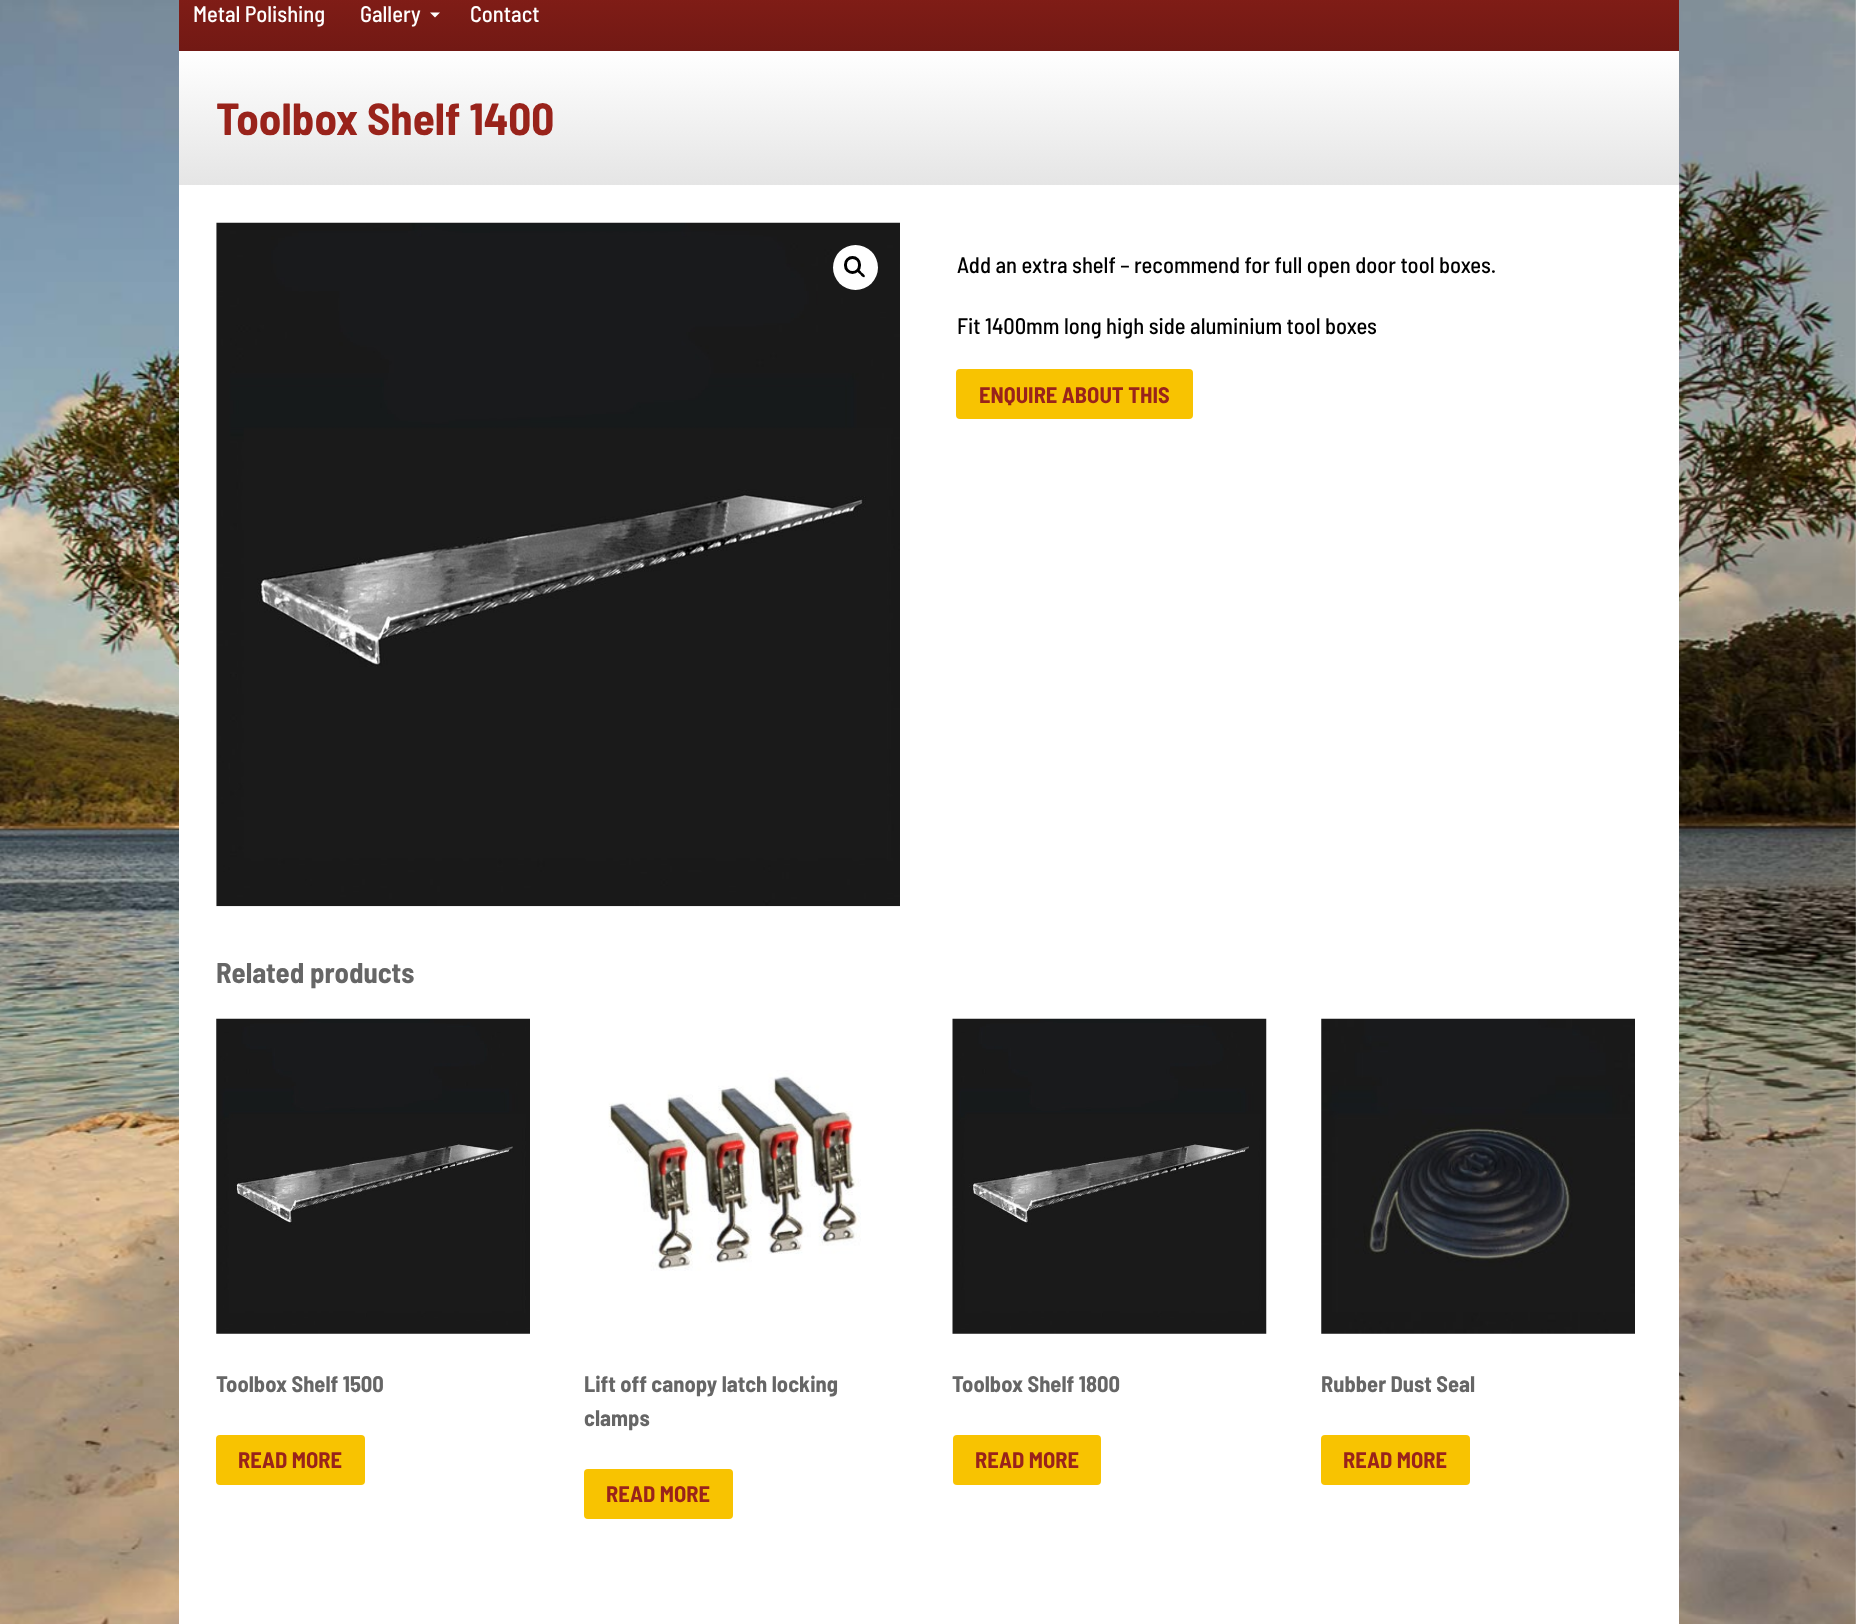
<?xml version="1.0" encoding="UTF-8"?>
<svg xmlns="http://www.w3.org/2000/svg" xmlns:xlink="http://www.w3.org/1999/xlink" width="1856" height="1624">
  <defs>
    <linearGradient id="g1" gradientUnits="userSpaceOnUse" x1="929" y1="-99" x2="929" y2="51"><stop offset="0" stop-color="#99231b" /><stop offset="1" stop-color="#721914" /></linearGradient>
    <linearGradient id="g2" gradientUnits="userSpaceOnUse" x1="929" y1="51" x2="929" y2="185"><stop offset="0" stop-color="#ffffff" /><stop offset="1" stop-color="#e5e5e5" /></linearGradient>
  </defs>
  <rect width="100%" height="100%" fill="#ffffff" />
  <image x="0" y="0" width="1856" height="1624" xlink:href="image1.png" />
  <rect x="179" width="1500" height="51" fill="url(#g1)" />
  <path d="M 430 12.5 h 10 l -5 5 z" fill="#ffffff" />
  <rect x="179" y="51" width="1500" height="134" fill="url(#g2)" />
  <rect x="179" y="185" width="1500" height="1439" fill="#ffffff" />
  <image x="216" y="222" width="684" height="685" xlink:href="image2.png" />
  <circle cx="855.5" cy="267.5" r="22.5" fill="#ffffff" />
  <rect x="845.5" y="257.5" width="14" height="15" rx="7" fill="none" stroke="#000000" stroke-width="3" />
  <path d="M 857.5 269.5 c 1 -1 3.5 2 4 3 c 1 0.5 4.5 3 3 4.5 c -1.5 1 -4 -2 -4.5 -3 c -1 -0.5 -4 -3 -2.5 -4.5 z" fill="#000000" />
  <rect x="956" y="369" width="237" height="50" rx="4" fill="#f8c301" />
  <image x="216" y="1018" width="314" height="316" xlink:href="image3.png" />
  <rect x="216" y="1435" width="149" height="50" rx="4" fill="#f8c301" />
  <image x="608" y="1070" width="253" height="201" xlink:href="image4.png" />
  <rect x="584" y="1469" width="149" height="50" rx="4" fill="#f8c301" />
  <image x="952" y="1018" width="315" height="316" xlink:href="image5.png" />
  <rect x="953" y="1435" width="148" height="50" rx="4" fill="#f8c301" />
  <image x="1321" y="1018" width="314" height="316" xlink:href="image6.png" />
  <rect x="1321" y="1435" width="149" height="50" rx="4" fill="#f8c301" />
  <text x="193" y="22" style="font-family: Barlow Semi Condensed; font-size: 22.5px; font-weight: 500; fill: #ffffff">Metal Polishing</text>
  <text x="360" y="22" style="font-family: Barlow Semi Condensed; font-size: 22.5px; font-weight: 500; fill: #ffffff">Gallery</text>
  <text x="470" y="22" style="font-family: Barlow Semi Condensed; font-size: 22.5px; font-weight: 500; fill: #ffffff">Contact</text>
  <text x="216" y="135" style="font-family: Barlow Semi Condensed; font-size: 45px; font-weight: bold; fill: #99231b">Toolbox Shelf 1400</text>
  <text x="957" y="273" style="font-family: Barlow Semi Condensed; font-size: 22.5px; font-weight: 500; fill: #000000">Add an extra shelf – recommend for full open door tool boxes.</text>
  <text x="957" y="334" style="font-family: Barlow Semi Condensed; font-size: 22.5px; font-weight: 500; fill: #000000">Fit 1400mm long high side aluminium tool boxes</text>
  <text x="979" y="403" style="font-family: Barlow Semi Condensed; font-size: 22.5px; font-weight: bold; fill: #99231b">ENQUIRE ABOUT THIS</text>
  <text x="216" y="983" style="font-family: Barlow Semi Condensed; font-size: 28.75px; font-weight: bold; fill: #666666">Related products</text>
  <text x="216" y="1392" style="font-family: Barlow Semi Condensed; font-size: 22.5px; font-weight: bold; fill: #666666">Toolbox Shelf 1500</text>
  <text x="238" y="1468" style="font-family: Barlow Semi Condensed; font-size: 22.5px; font-weight: bold; fill: #99231b">READ MORE</text>
  <text x="584" y="1392" style="font-family: Barlow Semi Condensed; font-size: 22.5px; font-weight: bold; fill: #666666">Lift off canopy latch locking</text>
  <text x="584" y="1426" style="font-family: Barlow Semi Condensed; font-size: 22.5px; font-weight: bold; fill: #666666">clamps</text>
  <text x="606" y="1502" style="font-family: Barlow Semi Condensed; font-size: 22.5px; font-weight: bold; fill: #99231b">READ MORE</text>
  <text x="952" y="1392" style="font-family: Barlow Semi Condensed; font-size: 22.5px; font-weight: bold; fill: #666666">Toolbox Shelf 1800</text>
  <text x="975" y="1468" style="font-family: Barlow Semi Condensed; font-size: 22.5px; font-weight: bold; fill: #99231b">READ MORE</text>
  <text x="1321" y="1392" style="font-family: Barlow Semi Condensed; font-size: 22.5px; font-weight: bold; fill: #666666">Rubber Dust Seal</text>
  <text x="1343" y="1468" style="font-family: Barlow Semi Condensed; font-size: 22.5px; font-weight: bold; fill: #99231b">READ MORE</text>
</svg>
